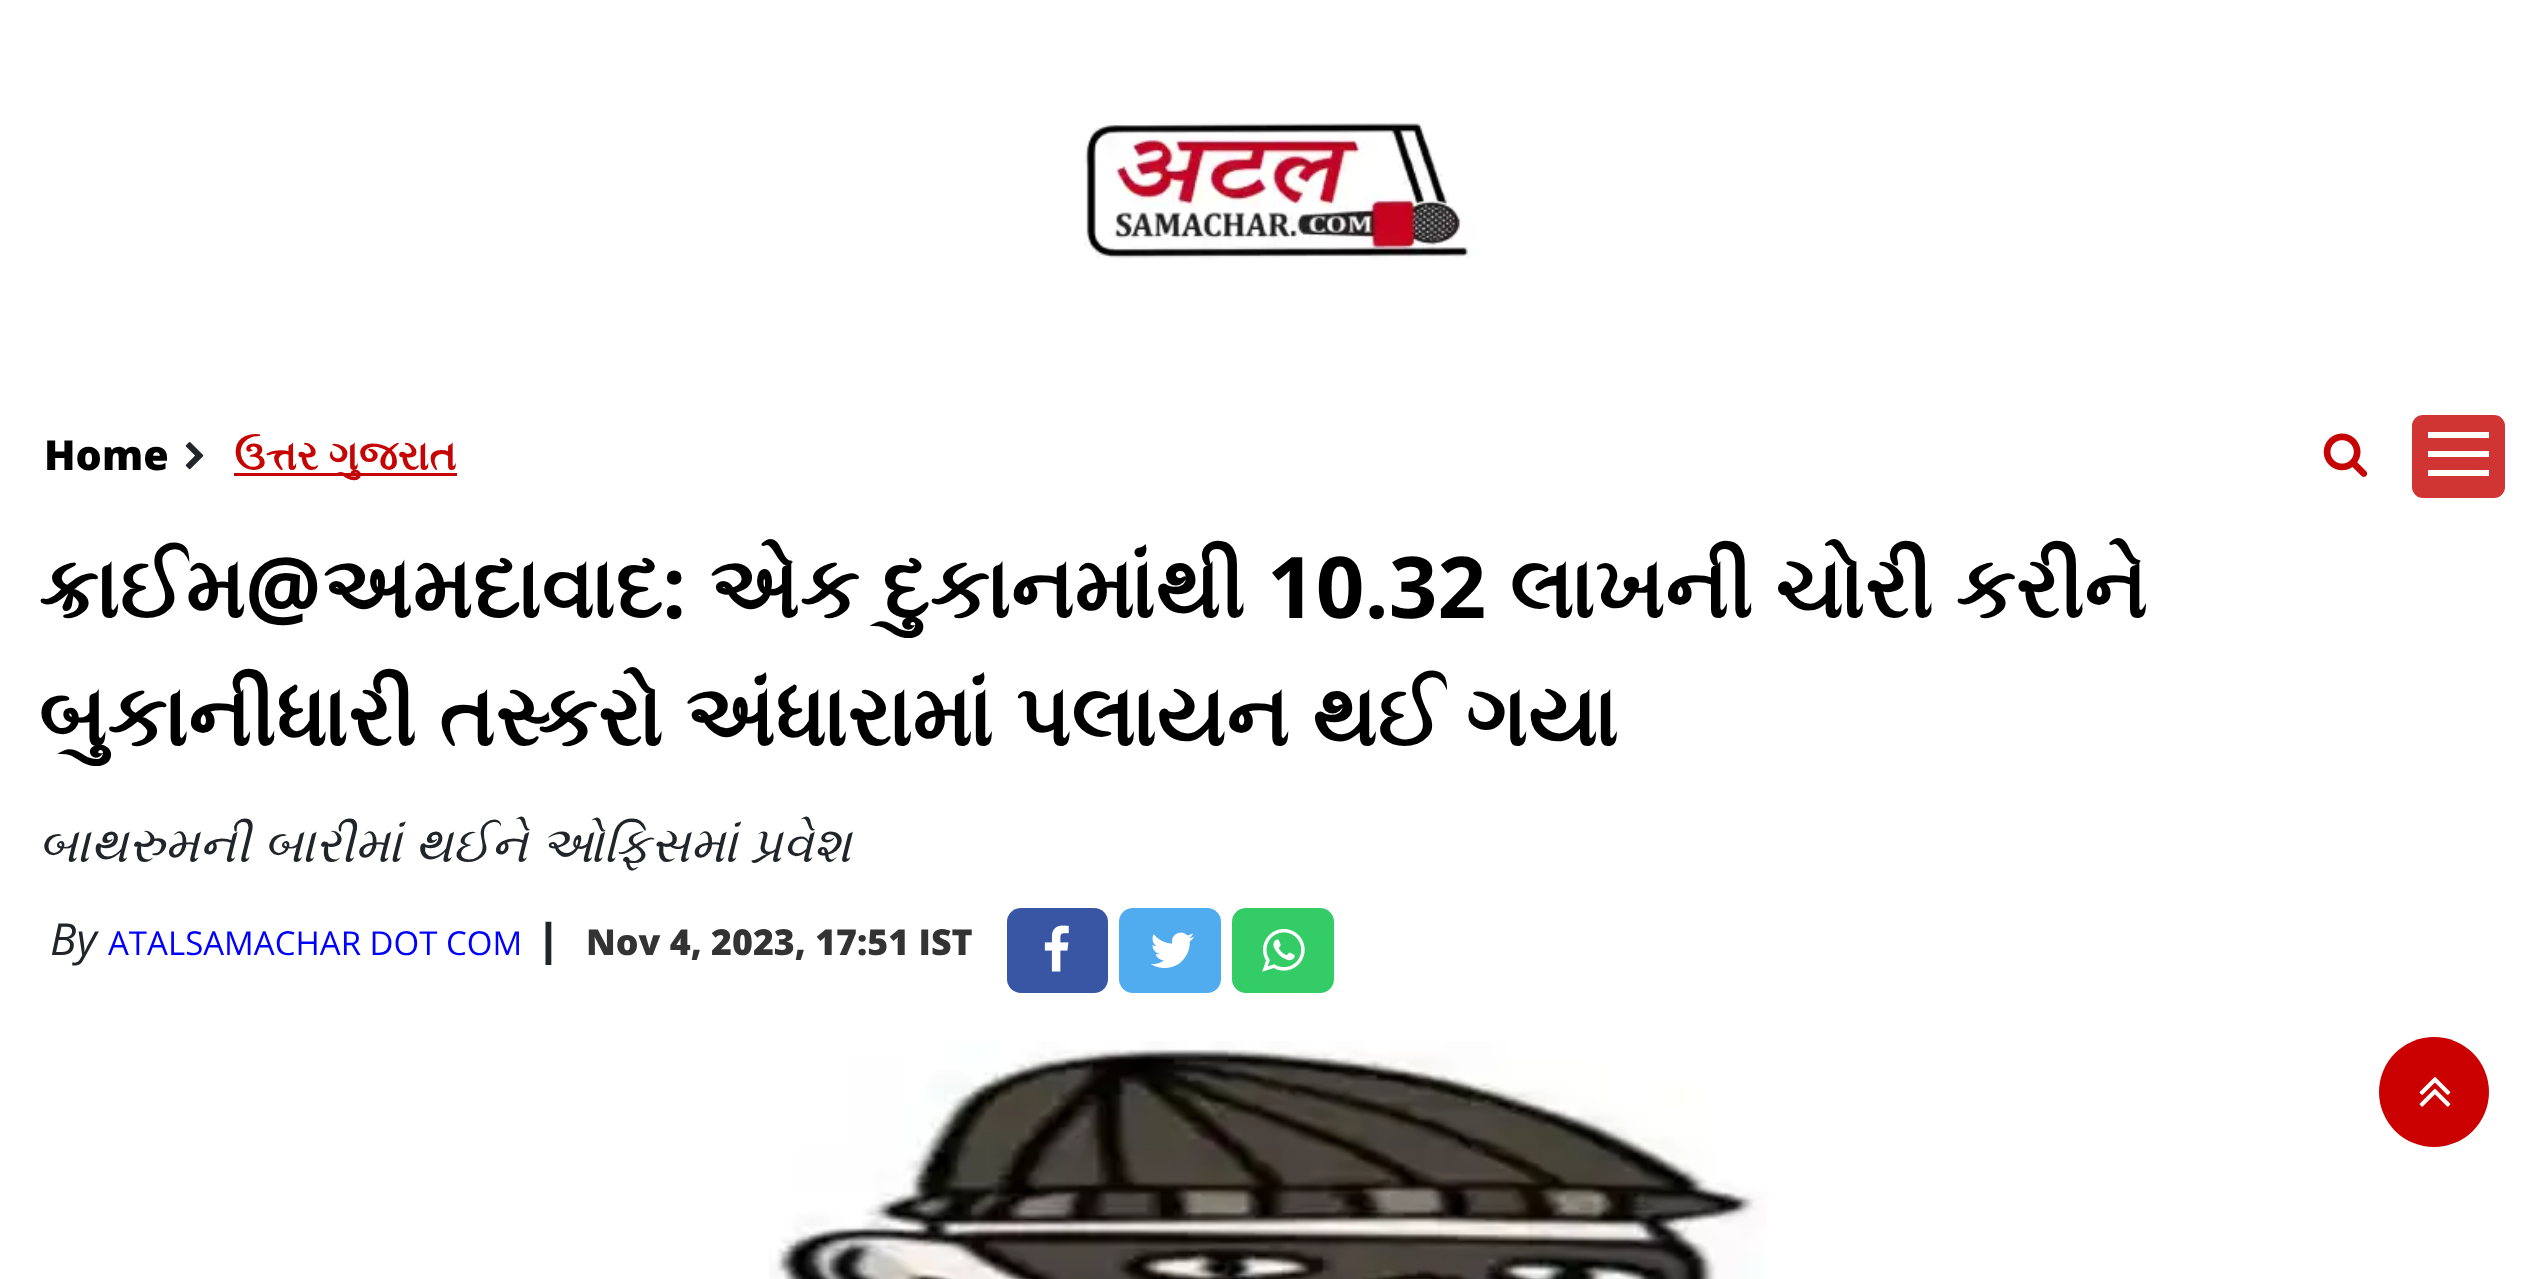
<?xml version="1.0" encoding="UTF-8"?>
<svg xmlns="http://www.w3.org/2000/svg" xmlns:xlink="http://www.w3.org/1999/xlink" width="2543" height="1279">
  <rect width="100%" height="100%" fill="#ffffff" />
  <image x="1084" y="121" width="396" height="138" xlink:href="image1.png" />
  <image x="2323" y="433" width="45" height="44" xlink:href="image2.png" />
  <rect x="2412" y="415" width="93" height="83" rx="11" fill="#d03534" />
  <rect x="2428" y="451" width="61" height="6" fill="#ffffff" />
  <rect x="2428" y="432" width="61" height="6" fill="#ffffff" />
  <rect x="2428" y="470" width="61" height="6" fill="#ffffff" />
  <image x="185" y="442" width="19" height="28" xlink:href="image3.png" />
  <rect x="234" y="473" width="223" height="3" fill="#c50504" />
  <rect x="1007" y="908" width="101" height="85" rx="14" fill="#3956a5" />
  <image x="1044" y="925" width="25" height="47" xlink:href="image4.png" />
  <rect x="1119" y="908" width="102" height="85" rx="14" fill="#51acef" />
  <image x="1151" y="932" width="43" height="36" xlink:href="image5.png" />
  <rect x="1232" y="908" width="102" height="85" rx="14" fill="#33cc66" />
  <image x="1262" y="928" width="43" height="44" xlink:href="image6.png" />
  <image x="769" y="1041" width="998" height="238" xlink:href="image7.png" />
  <circle cx="2434" cy="1092" r="55" fill="#cb0101" />
  <image x="2419" y="1077" width="32" height="30" xlink:href="image8.png" />
  <text x="44" y="470" style="font-family: Open Sans; font-size: 41.25px; font-weight: 800; fill: #000000">Home</text>
  <text x="234" y="470" style="font-family: FreeSerif; font-size: 41.25px; font-weight: bold; fill: #c50504">ઉત્તર ગુજરાત</text>
  <text x="38" y="618" style="font-family: FreeSerif; font-size: 85.25px; font-weight: bold; fill: #000000">ક્રાઈમ</text>
  <text x="245" y="618" style="font-family: Open Sans; font-size: 85.25px; font-weight: bold; fill: #000000">@</text>
  <text x="322" y="618" style="font-family: FreeSerif; font-size: 85.25px; font-weight: bold; fill: #000000">અમદાવાદ</text>
  <text x="662" y="618" style="font-family: Open Sans; font-size: 85.25px; font-weight: bold; fill: #000000">:</text>
  <text x="709" y="618" word-spacing="1" style="font-family: FreeSerif; font-size: 85.25px; font-weight: bold; fill: #000000">એક દુકાનમાંથી</text>
  <text x="1267" y="618" style="font-family: Open Sans; font-size: 85.25px; font-weight: bold; fill: #000000">10.32</text>
  <text x="1509" y="618" word-spacing="1" style="font-family: FreeSerif; font-size: 85.25px; font-weight: bold; fill: #000000">લાખની ચોરી કરીને</text>
  <text x="38" y="746" word-spacing="1" style="font-family: FreeSerif; font-size: 85.25px; font-weight: bold; fill: #000000">બુકાનીધારી તસ્કરો અંધારામાં પલાયન થઈ ગયા</text>
  <text x="38" y="862" word-spacing="0.5" style="font-family: FreeSerif; font-size: 49.5px; font-style: italic; fill: #212529">બાથરુમની બારીમાં થઈને ઓફિસમાં પ્રવેશ</text>
  <text x="50" y="955" style="font-family: Open Sans; font-size: 44px; font-style: italic; fill: #212529">By</text>
  <text x="108" y="955" style="font-family: Open Sans; font-size: 33px; fill: #0000ff">ATALSAMACHAR DOT COM</text>
  <text x="536" y="955" style="font-family: Open Sans; font-size: 44px; font-weight: 800; font-style: italic; fill: #212529">|</text>
  <text x="586" y="955" style="font-family: Open Sans; font-size: 35.75px; font-weight: 800; fill: #333333">Nov 4, 2023, 17:51 IST</text>
</svg>
